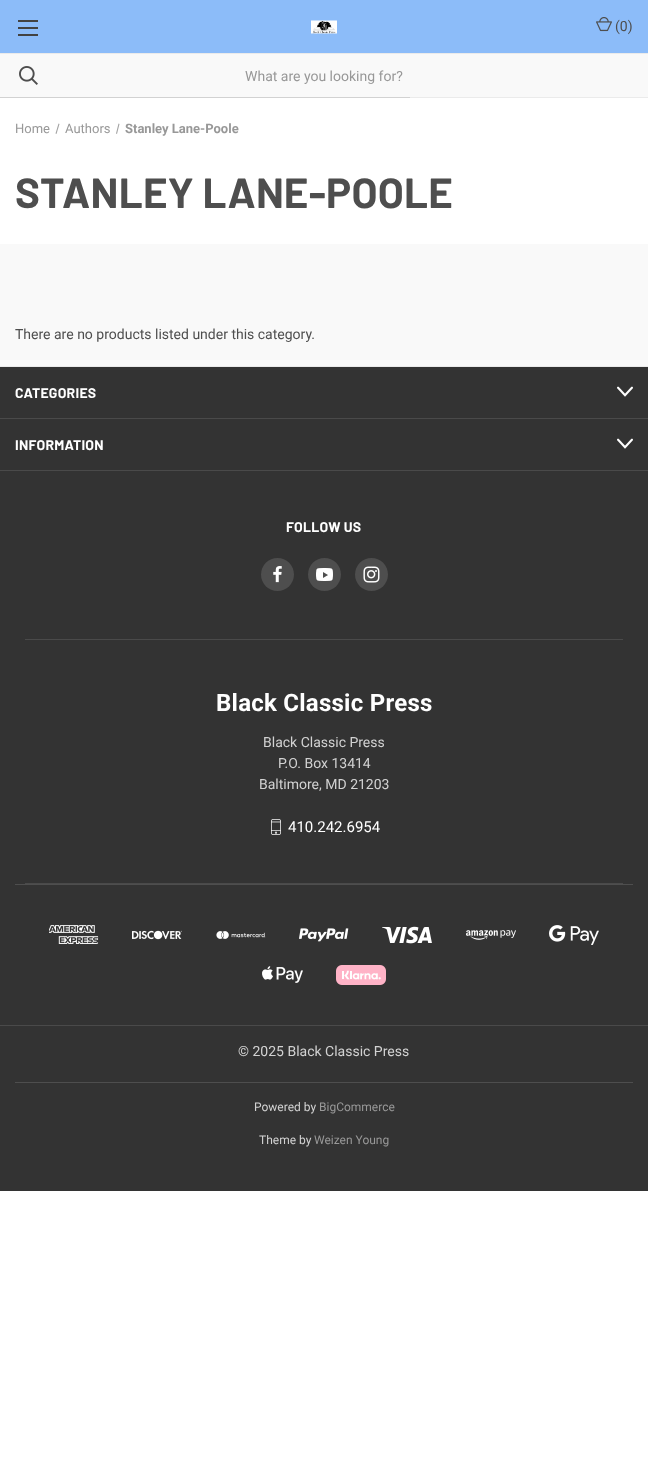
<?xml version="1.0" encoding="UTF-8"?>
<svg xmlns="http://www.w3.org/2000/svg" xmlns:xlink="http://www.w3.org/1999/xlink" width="648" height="1463">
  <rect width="100%" height="100%" fill="#ffffff" />
  <rect width="648" height="53" fill="#8cbcf9" />
  <rect x="410" y="97" width="238" height="1" fill="#ebebeb" />
  <rect x="18" y="27" width="20" height="2" fill="#424242" />
  <rect x="18" y="20" width="20" height="2" fill="#424242" />
  <rect x="18" y="34" width="20" height="2" fill="#424242" />
  <image x="311" y="20" width="26" height="14" xlink:href="image1.png" />
  <image x="596" y="17" width="16" height="15" xlink:href="image2.png" />
  <rect y="54" width="648" height="43" fill="#f9f9f9" />
  <image x="19" y="66" width="19" height="19" xlink:href="image3.png" />
  <rect y="53" width="648" height="1" fill="#ebebeb" />
  <rect y="97" width="410" height="1" fill="#d2d2d2" />
  <path d="M 58.5 123.5 l 1 0.5 l -3 10 l -1 -0.5 z" fill="#a3a3a3" />
  <path d="M 118.5 123.5 l 1 0.5 l -2.5 10 l -1 -0.5 z" fill="#a3a3a3" />
  <rect y="244" width="648" height="122" fill="#f9f9f9" />
  <rect y="367" width="648" height="824" fill="#333333" />
  <rect y="366" width="648" height="1" fill="#ebebeb" />
  <rect y="418" width="648" height="1" fill="#4a4a4a" />
  <image x="617" y="386" width="16" height="11" xlink:href="image4.png" />
  <rect y="470" width="648" height="1" fill="#4a4a4a" />
  <image x="617" y="438" width="16" height="11" xlink:href="image4.png" />
  <rect x="25" y="639" width="598" height="1" fill="#4a4a4a" />
  <circle cx="277.5" cy="574.5" r="16.5" fill="#4e4e4e" />
  <image x="273" y="566" width="9" height="17" xlink:href="image5.png" />
  <circle cx="324.5" cy="574.5" r="16.5" fill="#4e4e4e" />
  <image x="316" y="568" width="17" height="13" xlink:href="image6.png" />
  <circle cx="371.5" cy="574.5" r="16.5" fill="#4e4e4e" />
  <image x="363" y="566" width="17" height="17" xlink:href="image7.png" />
  <rect x="25" y="883" width="598" height="1" fill="#4a4a4a" />
  <image x="271" y="819" width="10" height="16" xlink:href="image8.png" />
  <rect x="15" y="884" width="618" height="1" fill="#4e4e4e" />
  <rect y="1025" width="648" height="1" fill="#4a4a4a" />
  <image x="49" y="925" width="50" height="19" xlink:href="image9.png" />
  <image x="132" y="930" width="50" height="10" xlink:href="image10.png" />
  <image x="216" y="931" width="50" height="8" xlink:href="image11.png" />
  <image x="299" y="928" width="50" height="14" xlink:href="image12.png" />
  <image x="382" y="926" width="50" height="18" xlink:href="image13.png" />
  <image x="466" y="930" width="50" height="10" xlink:href="image14.png" />
  <image x="549" y="925" width="50" height="20" xlink:href="image15.png" />
  <image x="262" y="966" width="41" height="17" xlink:href="image16.png" />
  <image x="336" y="965" width="50" height="20" xlink:href="image17.png" />
  <rect x="15" y="1082" width="618" height="1" fill="#4e4e4e" />
  <text x="615" y="31" style="font-family: Roboto; font-size: 14px; fill: #4e4e4e">(0)</text>
  <text x="245" y="81" style="font-family: Roboto; font-size: 14px; fill: #989898">What are you looking for?</text>
  <text x="15" y="133" style="font-family: Roboto; font-size: 13px; fill: #989898">Home</text>
  <text x="65" y="133" style="font-family: Roboto; font-size: 13px; fill: #989898">Authors</text>
  <text x="125" y="133" style="font-family: Roboto; font-size: 13px; font-weight: bold; fill: #989898">Stanley Lane-Poole</text>
  <text x="15" y="208" style="font-family: Barlow; font-size: 42px; font-weight: bold; letter-spacing: 0.25px; fill: #4e4e4e">STANLEY LANE-POOLE</text>
  <text x="15" y="339" style="font-family: Roboto; font-size: 14px; fill: #4e4e4e">There are no products listed under this category.</text>
  <text x="15" y="398" style="font-family: Barlow; font-size: 14px; font-weight: bold; letter-spacing: 0.25px; fill: #ffffff">CATEGORIES</text>
  <text x="15" y="450" style="font-family: Barlow; font-size: 14px; font-weight: bold; letter-spacing: 0.25px; fill: #ffffff">INFORMATION</text>
  <text x="286" y="532" style="font-family: Barlow; font-size: 14px; font-weight: bold; letter-spacing: 0.25px; fill: #ffffff">FOLLOW US</text>
  <text x="216" y="711" style="font-family: Roboto; font-size: 24px; font-weight: bold; letter-spacing: 0.25px; fill: #ffffff">Black Classic Press</text>
  <text x="263" y="747" style="font-family: Roboto; font-size: 14px; fill: #d2d2d2">Black Classic Press</text>
  <text x="278" y="768" style="font-family: Roboto; font-size: 14px; fill: #d2d2d2">P.O. Box 13414</text>
  <text x="259" y="789" style="font-family: Roboto; font-size: 14px; fill: #d2d2d2">Baltimore, MD 21203</text>
  <text x="288" y="832" style="font-family: Roboto; font-size: 15px; fill: #ffffff">410.242.6954</text>
  <text x="238" y="1056" style="font-family: Roboto; font-size: 14px; fill: #d2d2d2">© 2025 Black Classic Press</text>
  <text x="254" y="1111" style="font-family: Roboto; font-size: 12px; fill: #d2d2d2">Powered by</text>
  <text x="319" y="1111" style="font-family: Roboto; font-size: 12px; fill: #989898">BigCommerce</text>
  <text x="259" y="1144" style="font-family: Roboto; font-size: 12px; fill: #d2d2d2">Theme by</text>
  <text x="314" y="1144" style="font-family: Roboto; font-size: 12px; fill: #989898">Weizen Young</text>
</svg>
